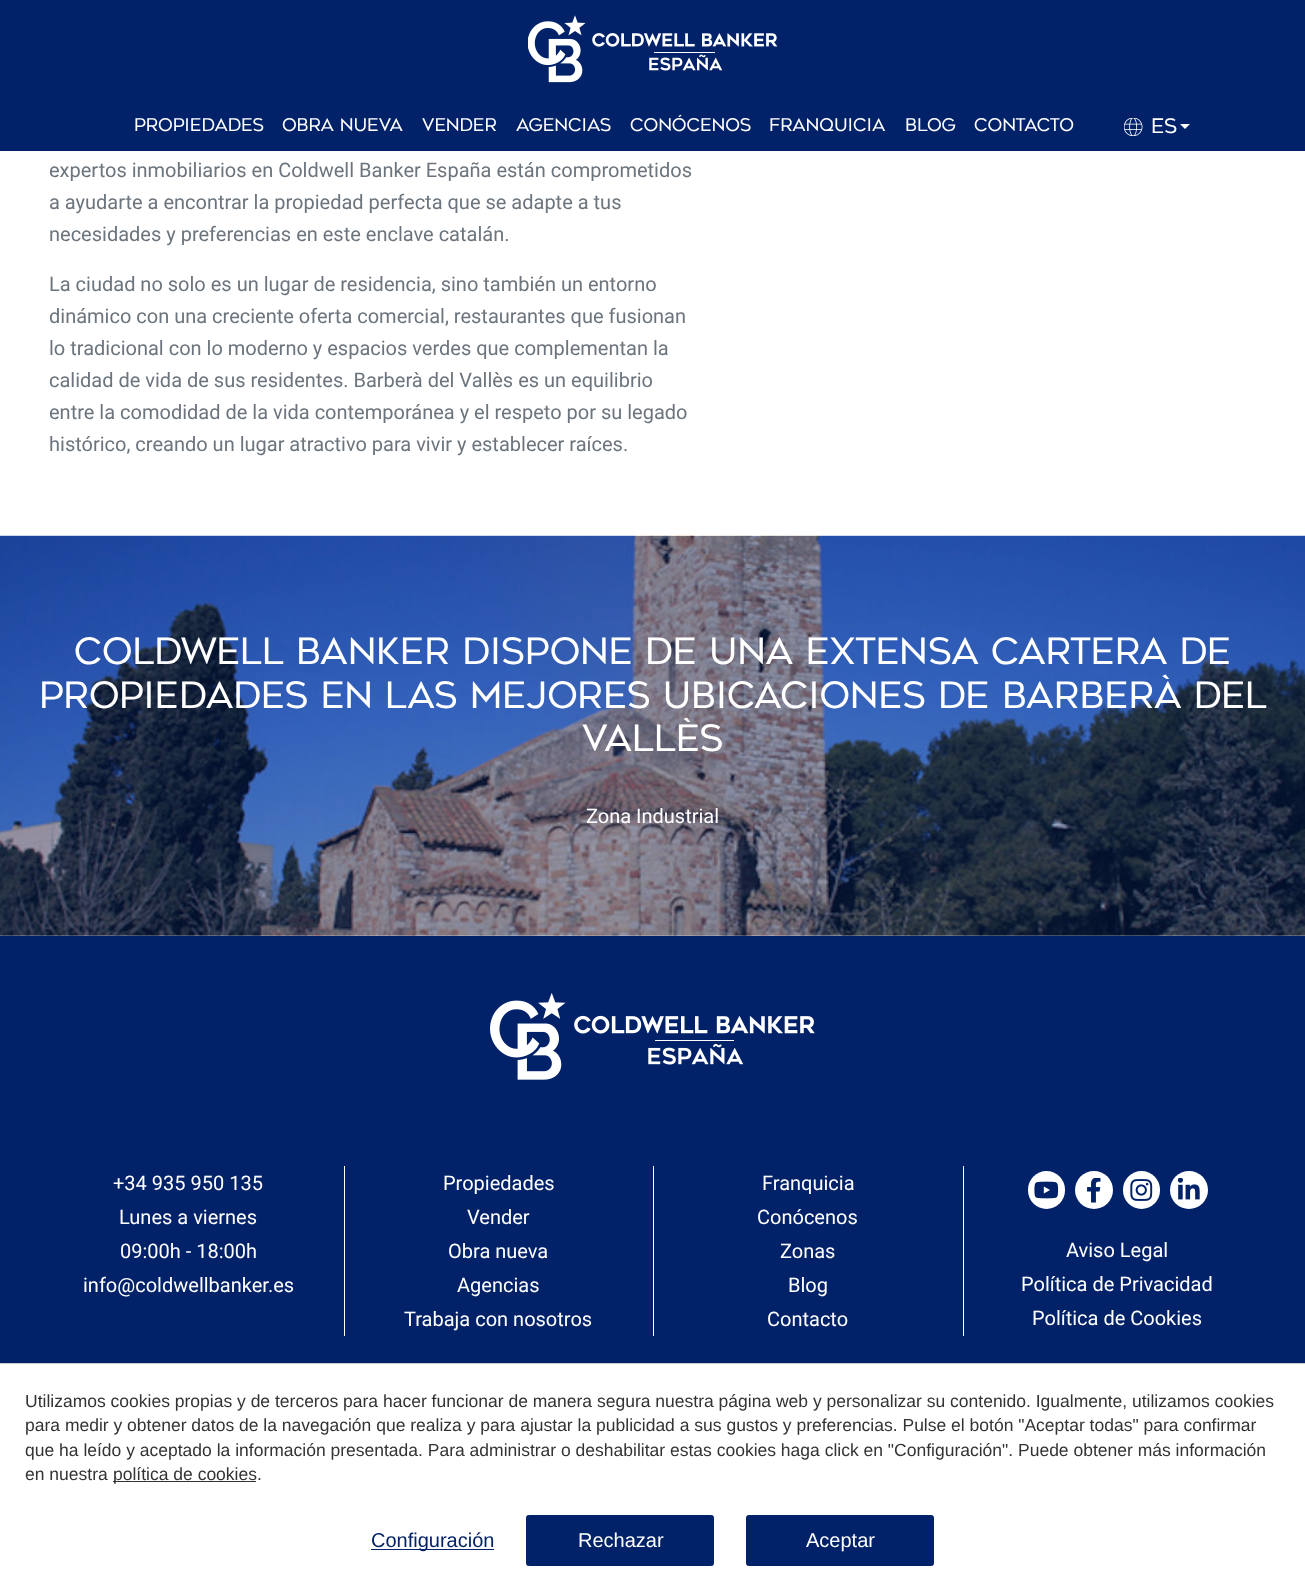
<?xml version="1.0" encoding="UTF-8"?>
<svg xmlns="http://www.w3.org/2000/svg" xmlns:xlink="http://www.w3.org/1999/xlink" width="1305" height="1596">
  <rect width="100%" height="100%" fill="#ffffff" />
  <rect width="1305" height="151" fill="#012169" />
  <image x="528" y="15" width="250" height="68" xlink:href="image1.png" />
  <image x="1124" y="118" width="19" height="18" xlink:href="image2.png" />
  <path d="M 1180 124 h 10 l -5 5 z" fill="#ffffff" />
  <image x="0" y="535" width="1305" height="401" xlink:href="image3.png" />
  <rect y="936" width="1305" height="427" fill="#012169" />
  <image x="490" y="993" width="325" height="87" xlink:href="image4.png" />
  <rect x="344" y="1166" width="1" height="170" fill="#ffffff" />
  <rect x="653" y="1166" width="1" height="170" fill="#ffffff" />
  <rect x="963" y="1166" width="1" height="170" fill="#ffffff" />
  <rect x="1028" y="1171" width="37" height="38" rx="18.5" fill="#ffffff" />
  <image x="1034" y="1181" width="25" height="18" xlink:href="image5.png" />
  <circle cx="1094" cy="1190" r="19" fill="#ffffff" />
  <image x="1087" y="1178" width="14" height="25" xlink:href="image6.png" />
  <rect x="1123" y="1171" width="37" height="38" rx="18.5" fill="#ffffff" />
  <image x="1130" y="1179" width="23" height="22" xlink:href="image7.png" />
  <circle cx="1189" cy="1190" r="19" fill="#ffffff" />
  <image x="1177" y="1178" width="23" height="22" xlink:href="image8.png" />
  <rect y="1363" width="1305" height="1" fill="#cccccc" />
  <rect x="113" y="1481" width="143" height="1" fill="#333333" />
  <rect x="371" y="1549" width="123" height="1" fill="#012169" />
  <rect x="526.5" y="1515.5" width="187" height="50" rx="2" fill="#012169" stroke="#012169" />
  <rect x="746.5" y="1515.5" width="187" height="50" rx="2" fill="#012169" stroke="#012169" />
  <text x="134" y="131" style="font-family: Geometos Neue; font-size: 17.5px; fill: #ffffff">Propiedades</text>
  <text x="282" y="131" style="font-family: Geometos Neue; font-size: 17.5px; fill: #ffffff">Obra nueva</text>
  <text x="422" y="131" style="font-family: Geometos Neue; font-size: 17.5px; fill: #ffffff">Vender</text>
  <text x="516" y="131" style="font-family: Geometos Neue; font-size: 17.5px; fill: #ffffff">Agencias</text>
  <text x="630" y="131" style="font-family: Geometos Neue; font-size: 17.5px; fill: #ffffff">Conócenos</text>
  <text x="769" y="131" style="font-family: Geometos Neue; font-size: 17.5px; fill: #ffffff">Franquicia</text>
  <text x="905" y="131" style="font-family: Geometos Neue; font-size: 17.5px; fill: #ffffff">Blog</text>
  <text x="974" y="131" style="font-family: Geometos Neue; font-size: 17.5px; fill: #ffffff">Contacto</text>
  <text x="1151" y="133" style="font-family: Geometos Neue; font-size: 20px; fill: #ffffff">ES</text>
  <text x="49" y="177" style="font-family: Roboto; font-size: 20px; fill: #6c757d">expertos inmobiliarios en Coldwell Banker España están comprometidos</text>
  <text x="49" y="209" style="font-family: Roboto; font-size: 20px; fill: #6c757d">a ayudarte a encontrar la propiedad perfecta que se adapte a tus</text>
  <text x="49" y="241" style="font-family: Roboto; font-size: 20px; fill: #6c757d">necesidades y preferencias en este enclave catalán.</text>
  <text x="49" y="291" style="font-family: Roboto; font-size: 20px; fill: #6c757d">La ciudad no solo es un lugar de residencia, sino también un entorno</text>
  <text x="49" y="323" style="font-family: Roboto; font-size: 20px; fill: #6c757d">dinámico con una creciente oferta comercial, restaurantes que fusionan</text>
  <text x="49" y="355" style="font-family: Roboto; font-size: 20px; fill: #6c757d">lo tradicional con lo moderno y espacios verdes que complementan la</text>
  <text x="49" y="387" style="font-family: Roboto; font-size: 20px; fill: #6c757d">calidad de vida de sus residentes. Barberà del Vallès es un equilibrio</text>
  <text x="49" y="419" style="font-family: Roboto; font-size: 20px; fill: #6c757d">entre la comodidad de la vida contemporánea y el respeto por su legado</text>
  <text x="49" y="451" style="font-family: Roboto; font-size: 20px; fill: #6c757d">histórico, creando un lugar atractivo para vivir y establecer raíces.</text>
  <text x="74" y="664" style="font-family: Geometos Neue; font-size: 36.25px; fill: #ffffff">Coldwell Banker Dispone De Una Extensa Cartera De</text>
  <text x="39" y="708" style="font-family: Geometos Neue; font-size: 36.25px; fill: #ffffff">Propiedades En Las Mejores Ubicaciones De Barberà Del</text>
  <text x="582" y="751" style="font-family: Geometos Neue; font-size: 36.25px; fill: #ffffff">Vallès</text>
  <text x="586" y="823" style="font-family: Roboto; font-size: 20px; fill: #ffffff">Zona Industrial</text>
  <text x="113" y="1190" style="font-family: Roboto; font-size: 20px; fill: #ffffff">+34 935 950 135</text>
  <text x="119" y="1224" style="font-family: Roboto; font-size: 20px; fill: #ffffff">Lunes a viernes</text>
  <text x="120" y="1258" style="font-family: Roboto; font-size: 20px; fill: #ffffff">09:00h - 18:00h</text>
  <text x="83" y="1292" style="font-family: Roboto; font-size: 20px; fill: #ffffff">info@coldwellbanker.es</text>
  <text x="443" y="1190" style="font-family: Roboto; font-size: 20px; fill: #ffffff">Propiedades</text>
  <text x="467" y="1224" style="font-family: Roboto; font-size: 20px; fill: #ffffff">Vender</text>
  <text x="448" y="1258" style="font-family: Roboto; font-size: 20px; fill: #ffffff">Obra nueva</text>
  <text x="457" y="1292" style="font-family: Roboto; font-size: 20px; fill: #ffffff">Agencias</text>
  <text x="404" y="1326" style="font-family: Roboto; font-size: 20px; fill: #ffffff">Trabaja con nosotros</text>
  <text x="762" y="1190" style="font-family: Roboto; font-size: 20px; fill: #ffffff">Franquicia</text>
  <text x="757" y="1224" style="font-family: Roboto; font-size: 20px; fill: #ffffff">Conócenos</text>
  <text x="780" y="1258" style="font-family: Roboto; font-size: 20px; fill: #ffffff">Zonas</text>
  <text x="788" y="1292" style="font-family: Roboto; font-size: 20px; fill: #ffffff">Blog</text>
  <text x="767" y="1326" style="font-family: Roboto; font-size: 20px; fill: #ffffff">Contacto</text>
  <text x="1066" y="1257" style="font-family: Roboto; font-size: 20px; fill: #ffffff">Aviso Legal</text>
  <text x="1021" y="1291" style="font-family: Roboto; font-size: 20px; fill: #ffffff">Política de Privacidad</text>
  <text x="1032" y="1325" style="font-family: Roboto; font-size: 20px; fill: #ffffff">Política de Cookies</text>
  <text x="25" y="1407" style="font-family: Liberation Sans; font-size: 17.5px; fill: #333333">Utilizamos cookies propias y de terceros para hacer funcionar de manera segura nuestra página web y personalizar su contenido. Igualmente, utilizamos cookies</text>
  <text x="25" y="1431" style="font-family: Liberation Sans; font-size: 17.5px; fill: #333333">para medir y obtener datos de la navegación que realiza y para ajustar la publicidad a sus gustos y preferencias. Pulse el botón "Aceptar todas" para confirmar</text>
  <text x="25" y="1456" style="font-family: Liberation Sans; font-size: 17.5px; fill: #333333">que ha leído y aceptado la información presentada. Para administrar o deshabilitar estas cookies haga click en "Configuración". Puede obtener más información</text>
  <text x="25" y="1480" style="font-family: Liberation Sans; font-size: 17.5px; fill: #333333">en nuestra</text>
  <text x="113" y="1480" style="font-family: Liberation Sans; font-size: 17.5px; fill: #333333">política de cookies.</text>
  <text x="371" y="1547" style="font-family: Liberation Sans; font-size: 20px; fill: #012169">Configuración</text>
  <text x="578" y="1547" style="font-family: Liberation Sans; font-size: 20px; fill: #ffffff">Rechazar</text>
  <text x="806" y="1547" style="font-family: Liberation Sans; font-size: 20px; fill: #ffffff">Aceptar</text>
</svg>
